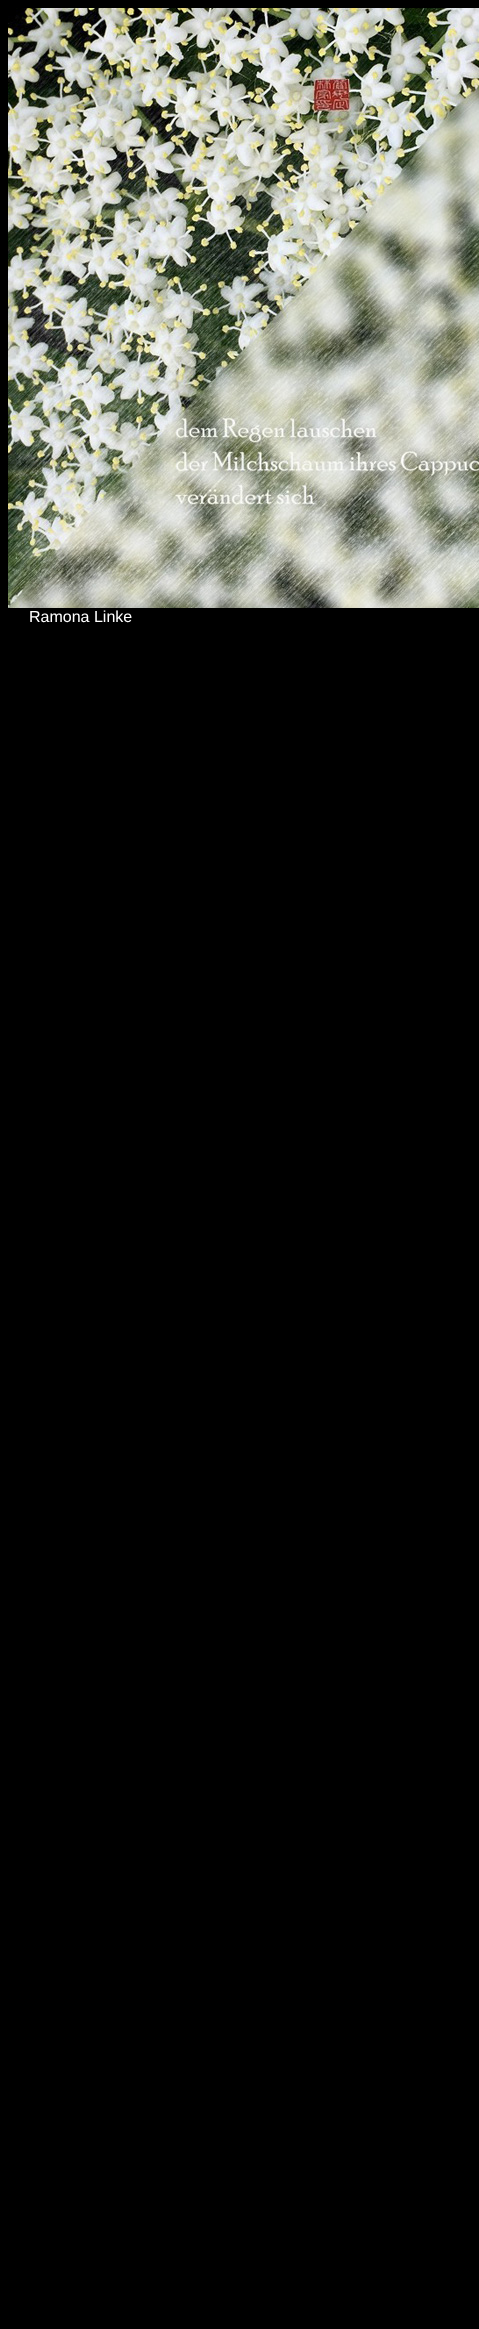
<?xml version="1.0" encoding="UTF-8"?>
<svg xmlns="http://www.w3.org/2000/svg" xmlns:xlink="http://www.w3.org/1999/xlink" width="479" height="2329">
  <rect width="100%" height="100%" fill="#000000" />
  <image x="8" y="8" width="471" height="600" xlink:href="image1.png" />
  <text x="29" y="622" style="font-family: Liberation Sans; font-size: 16px; fill: #ffffff">Ramona Linke</text>
</svg>
